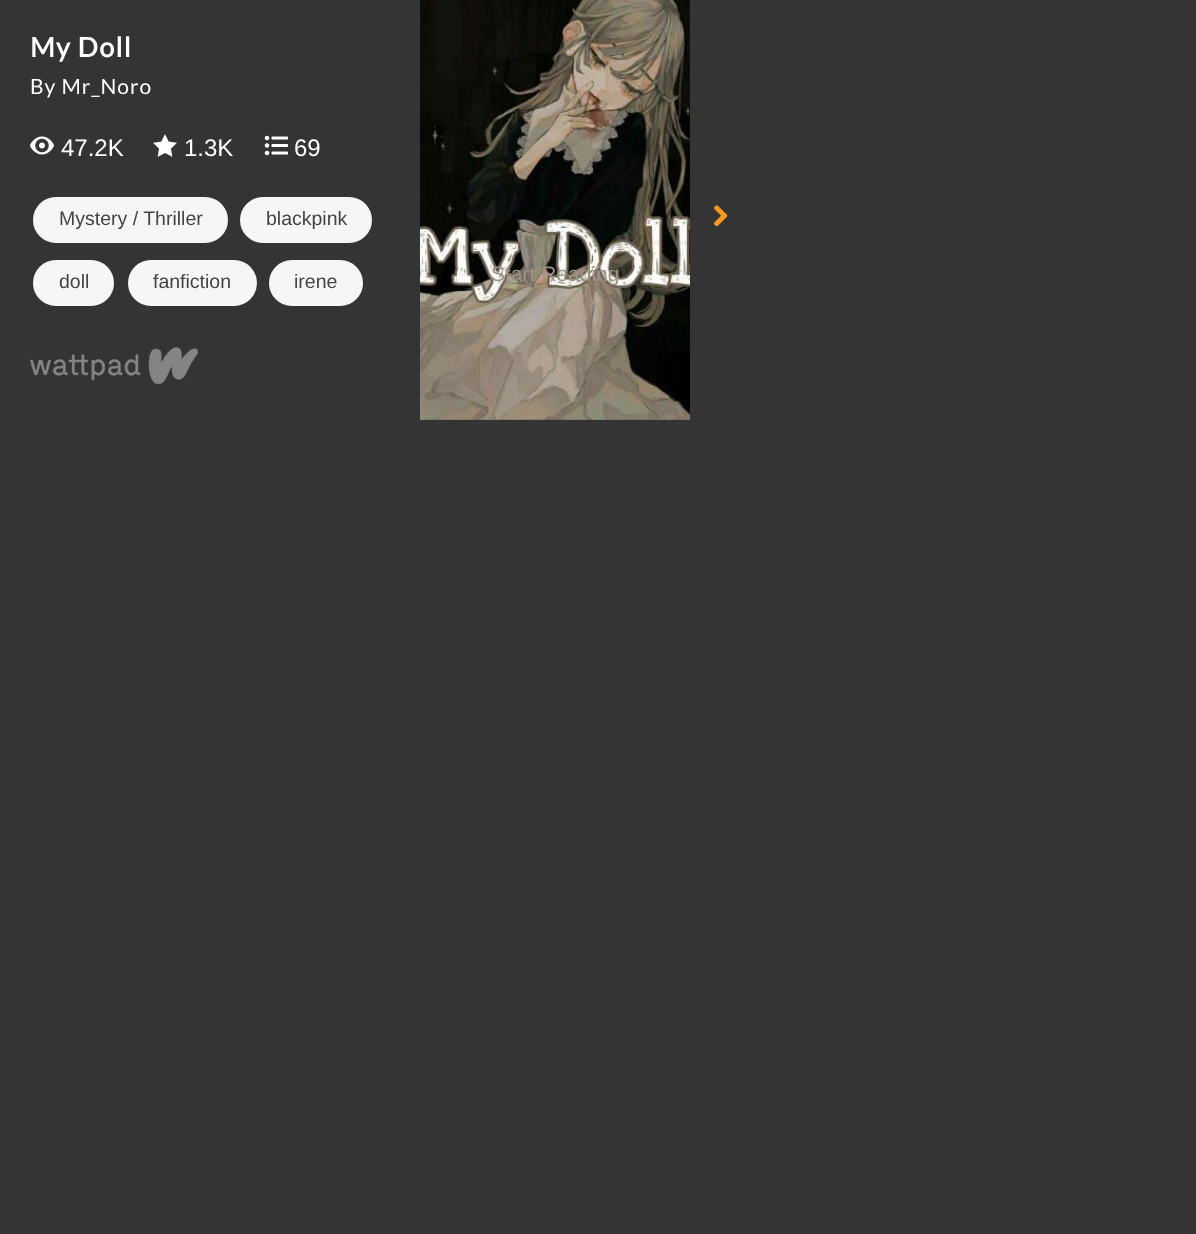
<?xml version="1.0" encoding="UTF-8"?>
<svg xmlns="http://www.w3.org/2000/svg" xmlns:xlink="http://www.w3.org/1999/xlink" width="1196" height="1234">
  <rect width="100%" height="100%" fill="#343434" />
  <image x="30" y="136" width="24" height="19" xlink:href="image1.png" />
  <image x="153" y="134" width="24" height="23" xlink:href="image2.png" />
  <image x="264" y="135" width="24" height="21" xlink:href="image3.png" />
  <rect x="34" y="198" width="193" height="44" rx="22" fill="#f6f6f7" stroke="#f6f6f7" stroke-width="2" />
  <rect x="241" y="198" width="130" height="44" rx="22" fill="#f6f6f7" stroke="#f6f6f7" stroke-width="2" />
  <rect x="34" y="261" width="79" height="44" rx="22" fill="#f6f6f7" stroke="#f6f6f7" stroke-width="2" />
  <rect x="129" y="261" width="127" height="44" rx="22" fill="#f6f6f7" stroke="#f6f6f7" stroke-width="2" />
  <rect x="270" y="261" width="92" height="44" rx="22" fill="#f6f6f7" stroke="#f6f6f7" stroke-width="2" />
  <image x="30" y="347" width="168" height="37" xlink:href="image4.png" />
  <image x="714" y="205" width="14" height="22" xlink:href="image5.png" />
  <image x="420" y="0" width="270" height="420" xlink:href="image6.png" />
  <text x="30" y="57" style="font-family: Lato; font-size: 27px; font-weight: bold; letter-spacing: 1.25px; fill: #ffffff">My Doll</text>
  <text x="30" y="94" style="font-family: Lato; font-size: 21px; letter-spacing: 1px; fill: #ffffff">By Mr_Noro</text>
  <text x="61" y="156" style="font-family: Liberation Sans; font-size: 24px; fill: #ffffff">47.2K</text>
  <text x="184" y="156" style="font-family: Liberation Sans; font-size: 24px; fill: #ffffff">1.3K</text>
  <text x="294" y="156" style="font-family: Liberation Sans; font-size: 24px; fill: #ffffff">69</text>
  <text x="59" y="225" style="font-family: Liberation Sans; font-size: 19.5px; fill: #444444">Mystery / Thriller</text>
  <text x="266" y="225" style="font-family: Liberation Sans; font-size: 19.5px; fill: #444444">blackpink</text>
  <text x="59" y="288" style="font-family: Liberation Sans; font-size: 19.5px; fill: #444444">doll</text>
  <text x="153" y="288" style="font-family: Liberation Sans; font-size: 19.5px; fill: #444444">fanfiction</text>
  <text x="294" y="288" style="font-family: Liberation Sans; font-size: 19.5px; fill: #444444">irene</text>
  <text x="491" y="281" style="font-family: Liberation Sans; font-size: 21px; fill: #9a9388">Start Reading</text>
</svg>
